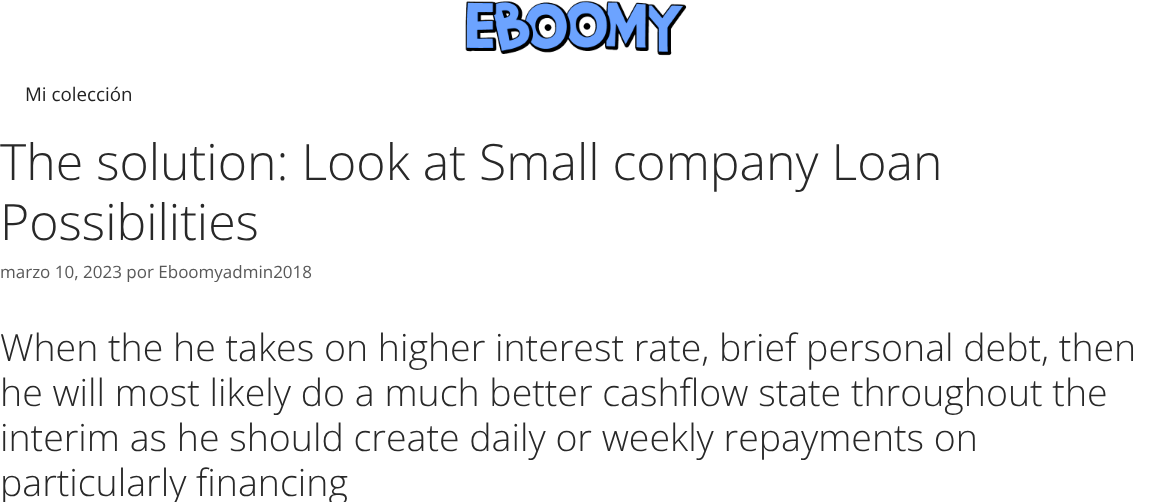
<?xml version="1.0" encoding="UTF-8"?>
<svg xmlns="http://www.w3.org/2000/svg" xmlns:xlink="http://www.w3.org/1999/xlink" width="1149" height="502">
  <rect width="100%" height="100%" fill="#ffffff" />
  <image x="465" y="0" width="222" height="56" xlink:href="image1.png" />
  <text x="25" y="101" style="font-family: Open Sans; font-size: 18.75px; fill: #222222">Mi colección</text>
  <text x="0" y="180" style="font-family: Open Sans; font-size: 50px; font-weight: 300; fill: #282828">The solution: Look at Small company Loan</text>
  <text x="0" y="240" style="font-family: Open Sans; font-size: 50px; font-weight: 300; fill: #282828">Possibilities</text>
  <text x="0" y="278" style="font-family: Open Sans; font-size: 17px; fill: #595959">marzo 10, 2023 por Eboomyadmin2018</text>
  <text x="0" y="361" style="font-family: Open Sans; font-size: 37.5px; font-weight: 300; fill: #282828">When the he takes on higher interest rate, brief personal debt, then</text>
  <text x="0" y="406" style="font-family: Open Sans; font-size: 37.5px; font-weight: 300; fill: #282828">he will most likely do a much better cashflow state throughout the</text>
  <text x="0" y="451" style="font-family: Open Sans; font-size: 37.5px; font-weight: 300; fill: #282828">interim as he should create daily or weekly repayments on</text>
  <text x="0" y="496" style="font-family: Open Sans; font-size: 37.5px; font-weight: 300; fill: #282828">particularly financing</text>
</svg>
